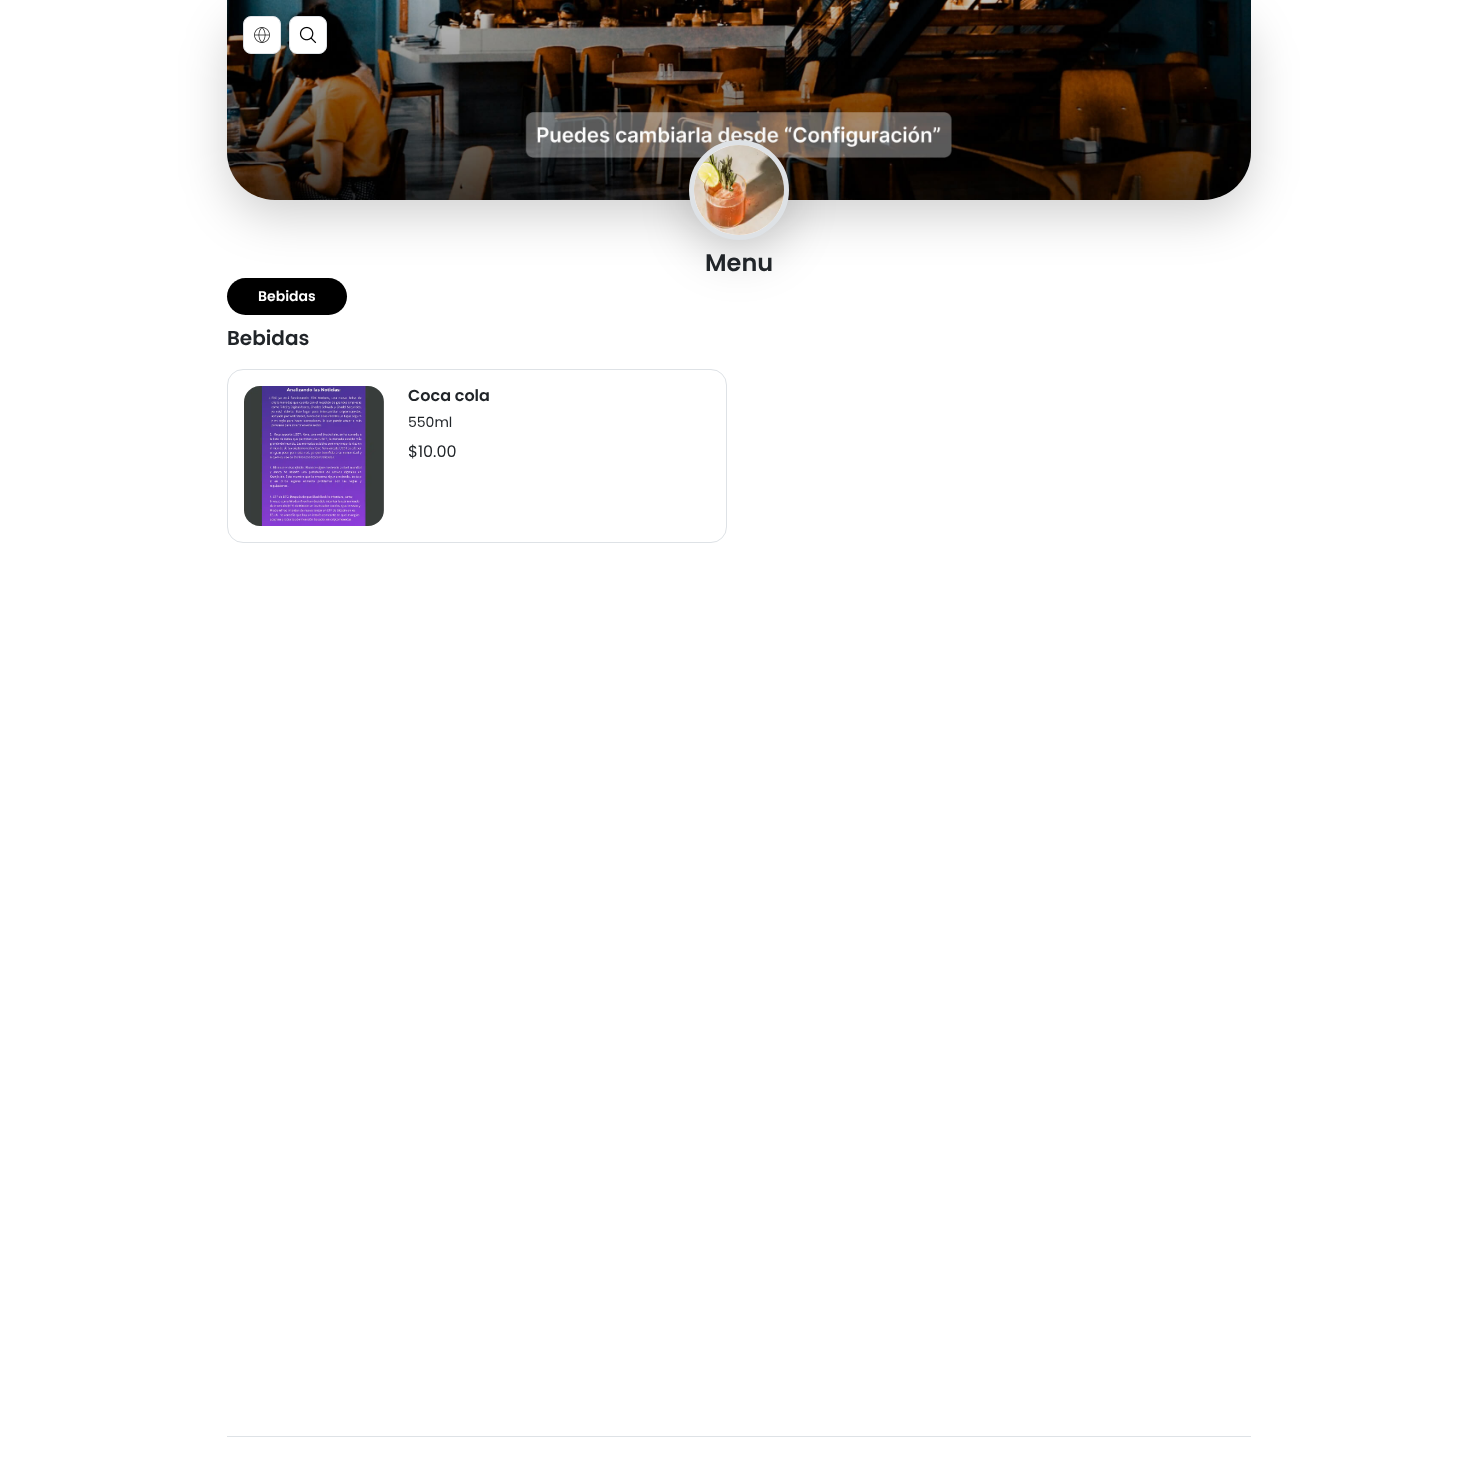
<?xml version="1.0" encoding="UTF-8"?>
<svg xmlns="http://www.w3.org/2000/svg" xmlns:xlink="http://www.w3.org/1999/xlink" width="1478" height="1469">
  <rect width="100%" height="100%" fill="#ffffff" />
  <rect x="227" y="278" width="120" height="37" rx="18.5" fill="#000000" />
  <rect x="227" y="16" width="1024" height="200" rx="48" fill="#000000" fill-opacity="0.18" filter="blur(24px)" />
  <image x="227" y="0" width="1024" height="200" xlink:href="image1.png" />
  <rect x="243" y="18" width="38" height="38" rx="8" fill="#000000" fill-opacity="0.07" filter="blur(2px)" />
  <rect x="243.5" y="16.5" width="37" height="37" rx="7.5" fill="#ffffff" stroke="#dee2e6" />
  <image x="254" y="27" width="16" height="16" xlink:href="image2.png" />
  <rect x="289" y="18" width="38" height="38" rx="8" fill="#000000" fill-opacity="0.07" filter="blur(2px)" />
  <rect x="289.5" y="16.5" width="37" height="37" rx="7.5" fill="#ffffff" stroke="#dee2e6" />
  <image x="299" y="26" width="18" height="18" xlink:href="image3.png" />
  <rect x="689" y="156" width="100" height="100" rx="50" fill="#000000" fill-opacity="0.18" filter="blur(24px)" />
  <circle cx="739" cy="190" r="47.5" fill="#ffffff" stroke="#dee2e6" stroke-width="5" />
  <image x="694" y="145" width="90" height="90" xlink:href="image4.png" />
  <rect x="227.5" y="369.5" width="499" height="173" rx="15.5" fill="none" stroke="#dee2e6" />
  <image x="244" y="386" width="140" height="140" xlink:href="image5.png" />
  <rect x="227" y="1436" width="1024" height="1" fill="#dee2e6" />
  <text x="705" y="271" style="font-family: Poppins; font-size: 24px; font-weight: 600; fill: #212529">Menu</text>
  <text x="258" y="301" style="font-family: Poppins; font-size: 14px; font-weight: 600; fill: #ffffff">Bebidas</text>
  <text x="227" y="345" style="font-family: Poppins; font-size: 20px; font-weight: 600; fill: #212529">Bebidas</text>
  <text x="408" y="401" style="font-family: Poppins; font-size: 16px; font-weight: 600; fill: #212529">Coca cola</text>
  <text x="408" y="427" style="font-family: Poppins; font-size: 14px; fill: #212529">550ml</text>
  <text x="408" y="457" style="font-family: Poppins; font-size: 16px; fill: #212529">$10.00</text>
</svg>
